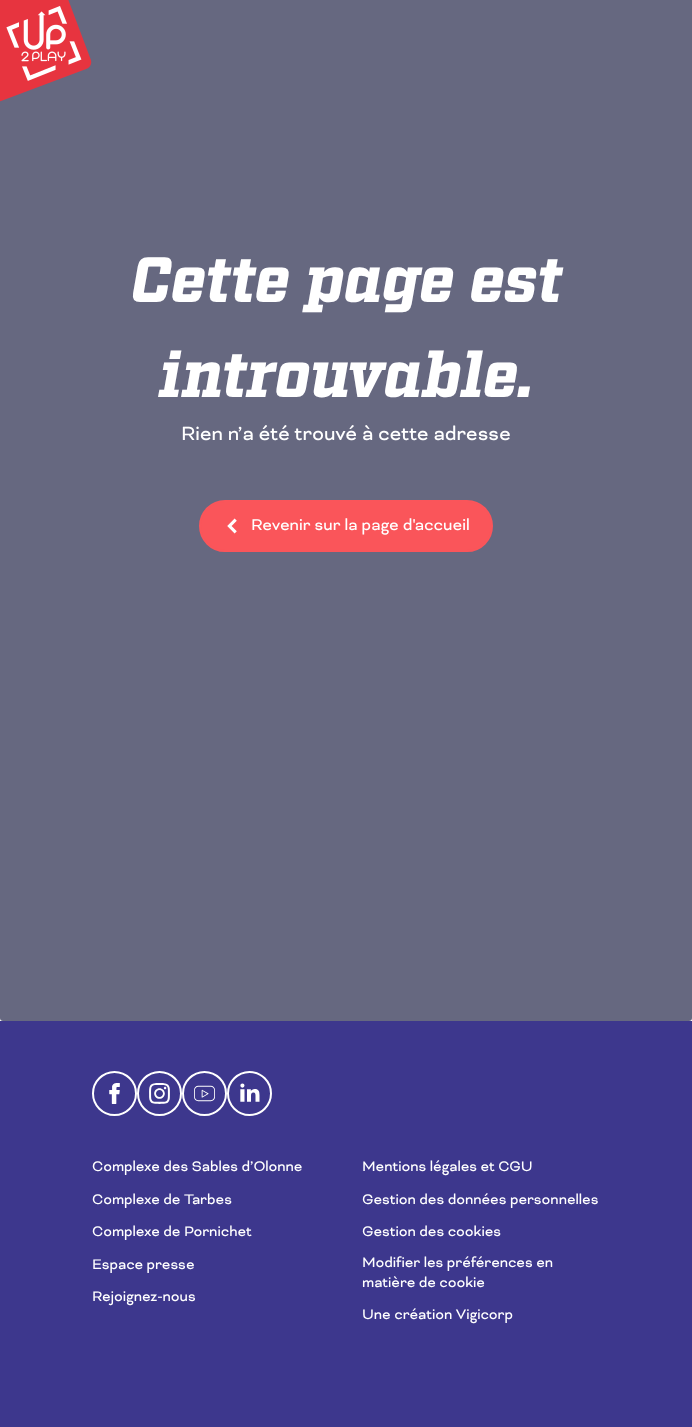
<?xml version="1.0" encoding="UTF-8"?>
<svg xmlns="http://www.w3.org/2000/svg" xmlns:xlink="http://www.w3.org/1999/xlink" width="692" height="1427">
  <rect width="100%" height="100%" fill="#ffffff" />
  <rect y="-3" width="692" height="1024" rx="3" fill="#666880" />
  <image x="0" y="0" width="92" height="102" xlink:href="image1.png" />
  <rect x="200" y="501" width="292" height="50" rx="25" fill="#fa555a" stroke="#fa555a" stroke-width="2" />
  <image x="227" y="518" width="10" height="16" xlink:href="image2.png" />
  <rect y="1021" width="692" height="406" fill="#3d378d" />
  <circle cx="114.5" cy="1093.5" r="21.5" fill="none" stroke="#ffffff" stroke-width="2" />
  <image x="109" y="1083" width="11" height="21" xlink:href="image3.png" />
  <circle cx="159.5" cy="1093.5" r="21.5" fill="none" stroke="#ffffff" stroke-width="2" />
  <image x="149" y="1083" width="21" height="21" xlink:href="image4.png" />
  <circle cx="204.5" cy="1093.5" r="21.5" fill="none" stroke="#ffffff" stroke-width="2" />
  <image x="194" y="1085" width="21" height="17" xlink:href="image5.png" />
  <circle cx="249.5" cy="1093.5" r="21.5" fill="none" stroke="#ffffff" stroke-width="2" />
  <image x="240" y="1083" width="20" height="19" xlink:href="image6.png" />
  <text x="131" y="302" style="font-family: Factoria; font-size: 63.75px; font-weight: 900; font-style: italic; fill: #ffffff">Cette page est</text>
  <text x="159" y="397" style="font-family: Factoria; font-size: 63.75px; font-weight: 900; font-style: italic; fill: #ffffff">introuvable.</text>
  <text x="181" y="440" style="font-family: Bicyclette; font-size: 22px; letter-spacing: -0.05px; fill: #ffffff">Rien n’a été trouvé à cette adresse</text>
  <text x="251" y="530" style="font-family: Bicyclette; font-size: 18px; fill: #ffffff">Revenir sur la page d'accueil</text>
  <text x="92" y="1171" style="font-family: Bicyclette; font-size: 16px; letter-spacing: -0.05px; fill: #ffffff">Complexe des Sables d’Olonne</text>
  <text x="92" y="1204" style="font-family: Bicyclette; font-size: 16px; letter-spacing: -0.05px; fill: #ffffff">Complexe de Tarbes</text>
  <text x="92" y="1236" style="font-family: Bicyclette; font-size: 16px; letter-spacing: -0.05px; fill: #ffffff">Complexe de Pornichet</text>
  <text x="92" y="1269" style="font-family: Bicyclette; font-size: 16px; letter-spacing: -0.05px; fill: #ffffff">Espace presse</text>
  <text x="92" y="1301" style="font-family: Bicyclette; font-size: 16px; letter-spacing: -0.05px; fill: #ffffff">Rejoignez-nous</text>
  <text x="362" y="1171" style="font-family: Bicyclette; font-size: 16px; letter-spacing: -0.05px; fill: #ffffff">Mentions légales et CGU</text>
  <text x="362" y="1204" style="font-family: Bicyclette; font-size: 16px; letter-spacing: -0.05px; fill: #ffffff">Gestion des données personnelles</text>
  <text x="362" y="1236" style="font-family: Bicyclette; font-size: 16px; letter-spacing: -0.05px; fill: #ffffff">Gestion des cookies</text>
  <text x="362" y="1267" style="font-family: Bicyclette; font-size: 16px; letter-spacing: -0.05px; fill: #ffffff">Modifier les préférences en</text>
  <text x="362" y="1287" style="font-family: Bicyclette; font-size: 16px; letter-spacing: -0.05px; fill: #ffffff">matière de cookie</text>
  <text x="362" y="1319" style="font-family: Bicyclette; font-size: 16px; letter-spacing: -0.05px; fill: #ffffff">Une création Vigicorp</text>
</svg>
